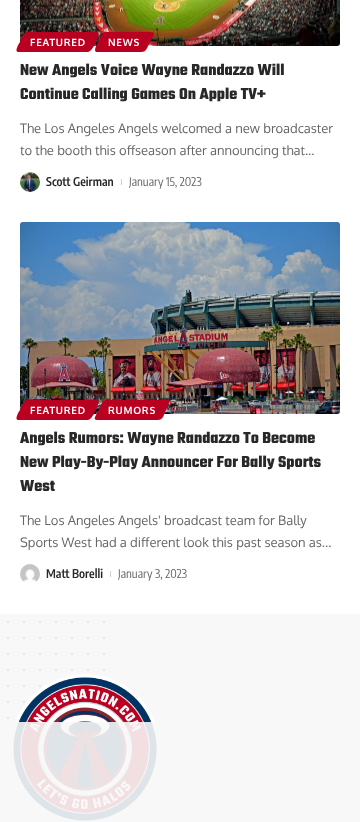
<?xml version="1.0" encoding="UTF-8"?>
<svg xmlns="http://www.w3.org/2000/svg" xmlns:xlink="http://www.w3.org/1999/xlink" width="360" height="822">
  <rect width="100%" height="100%" fill="#ffffff" />
  <image x="20" y="0" width="320" height="46" xlink:href="image1.png" />
  <path d="M 28 32 h 57 c 9 0 16 -3 13 5 c -2 4 -5 14 -10 15 h -70 c -4 0 1 -9 2 -10 c 1 -3 3 -10 8 -10 z" fill="#b90020" />
  <path d="M 106 32 h 38 c 14 0 11 0 5 12 c -4 9 -4 8 -14 8 h -39 c -3 -2 2 -9 2 -10 c 2 -3 3 -10 8 -10 z" fill="#b90020" />
  <image x="20" y="172" width="20" height="20" xlink:href="image2.png" />
  <rect x="121" y="179" width="1" height="6" fill="#d1d1d1" />
  <image x="20" y="222" width="320" height="192" xlink:href="image3.png" />
  <path d="M 28 400 h 57 c 9 0 16 -3 13 5 c -2 4 -5 14 -10 15 h -70 c -4 0 1 -9 2 -10 c 1 -3 3 -10 8 -10 z" fill="#b90020" />
  <path d="M 106 400 h 62 c 1 0 2 1 1 3 l -6 14 c -1 2 -3 3 -5 3 h -61 c -2 0 -3 -1 -2 -3 l 7 -14 c 0 -2 2 -3 4 -3 z" fill="#b90020" />
  <image x="20" y="564" width="20" height="18" xlink:href="image4.png" />
  <rect x="110" y="571" width="1" height="6" fill="#d1d1d1" />
  <rect y="614" width="360" height="208" fill="#f8f8f8" />
  <path d="M 8 622 v 176.2" fill="none" stroke="#cecece" stroke-width="1.5" stroke-linecap="round" stroke-dasharray="0 16" />
  <path d="M 24 622 v 176.2" fill="none" stroke="#cecece" stroke-width="1.5" stroke-linecap="round" stroke-dasharray="0 16" />
  <path d="M 40 622 v 176.2" fill="none" stroke="#cecece" stroke-width="1.5" stroke-linecap="round" stroke-dasharray="0 16" />
  <path d="M 56 622 v 176.2" fill="none" stroke="#cecece" stroke-width="1.5" stroke-linecap="round" stroke-dasharray="0 16" />
  <path d="M 72 622 v 176.2" fill="none" stroke="#cecece" stroke-width="1.5" stroke-linecap="round" stroke-dasharray="0 16" />
  <path d="M 88 622 v 176.2" fill="none" stroke="#cecece" stroke-width="1.5" stroke-linecap="round" stroke-dasharray="0 16" />
  <path d="M 104 622 v 176.2" fill="none" stroke="#cecece" stroke-width="1.5" stroke-linecap="round" stroke-dasharray="0 16" />
  <image x="10" y="674" width="150" height="148" xlink:href="image5.png" />
  <rect x="7" y="722" width="153" height="100" fill="#f7f7f7" fill-opacity="0.9" />
  <text x="30" y="46" style="font-family: Oxygen; font-size: 10px; font-weight: bold; letter-spacing: 0.75px; fill: #ffffff">FEATURED</text>
  <text x="108" y="46" style="font-family: Oxygen; font-size: 10px; font-weight: bold; letter-spacing: 0.75px; fill: #ffffff">NEWS</text>
  <text x="20" y="75" style="font-family: Teko; font-size: 17px; font-weight: 300; fill: #282828">New Angels Voice Wayne Randazzo Will</text>
  <text x="20" y="99" style="font-family: Teko; font-size: 17px; font-weight: 300; fill: #282828">Continue Calling Games On Apple TV+</text>
  <text x="20" y="133" style="font-family: Oxygen; font-size: 13px; fill: #666666">The Los Angeles Angels welcomed a new broadcaster</text>
  <text x="20" y="155" style="font-family: Oxygen; font-size: 13px; fill: #666666">to the booth this offseason after announcing that...</text>
  <text x="46" y="186" style="font-family: Encode Sans Condensed; font-size: 12px; font-weight: 600; fill: #282828">Scott Geirman</text>
  <text x="129" y="186" style="font-family: Encode Sans Condensed; font-size: 12px; fill: #666666">January 15, 2023</text>
  <text x="30" y="414" style="font-family: Oxygen; font-size: 10px; font-weight: bold; letter-spacing: 0.75px; fill: #ffffff">FEATURED</text>
  <text x="108" y="414" style="font-family: Oxygen; font-size: 10px; font-weight: bold; letter-spacing: 0.75px; fill: #ffffff">RUMORS</text>
  <text x="20" y="443" style="font-family: Teko; font-size: 17px; font-weight: 300; fill: #282828">Angels Rumors: Wayne Randazzo To Become</text>
  <text x="20" y="467" style="font-family: Teko; font-size: 17px; font-weight: 300; fill: #282828">New Play-By-Play Announcer For Bally Sports</text>
  <text x="20" y="491" style="font-family: Teko; font-size: 17px; font-weight: 300; fill: #282828">West</text>
  <text x="20" y="525" style="font-family: Oxygen; font-size: 13px; fill: #666666">The Los Angeles Angels' broadcast team for Bally</text>
  <text x="20" y="547" style="font-family: Oxygen; font-size: 13px; fill: #666666">Sports West had a different look this past season as...</text>
  <text x="46" y="578" style="font-family: Encode Sans Condensed; font-size: 12px; font-weight: 600; fill: #282828">Matt Borelli</text>
  <text x="118" y="578" style="font-family: Encode Sans Condensed; font-size: 12px; fill: #666666">January 3, 2023</text>
</svg>
